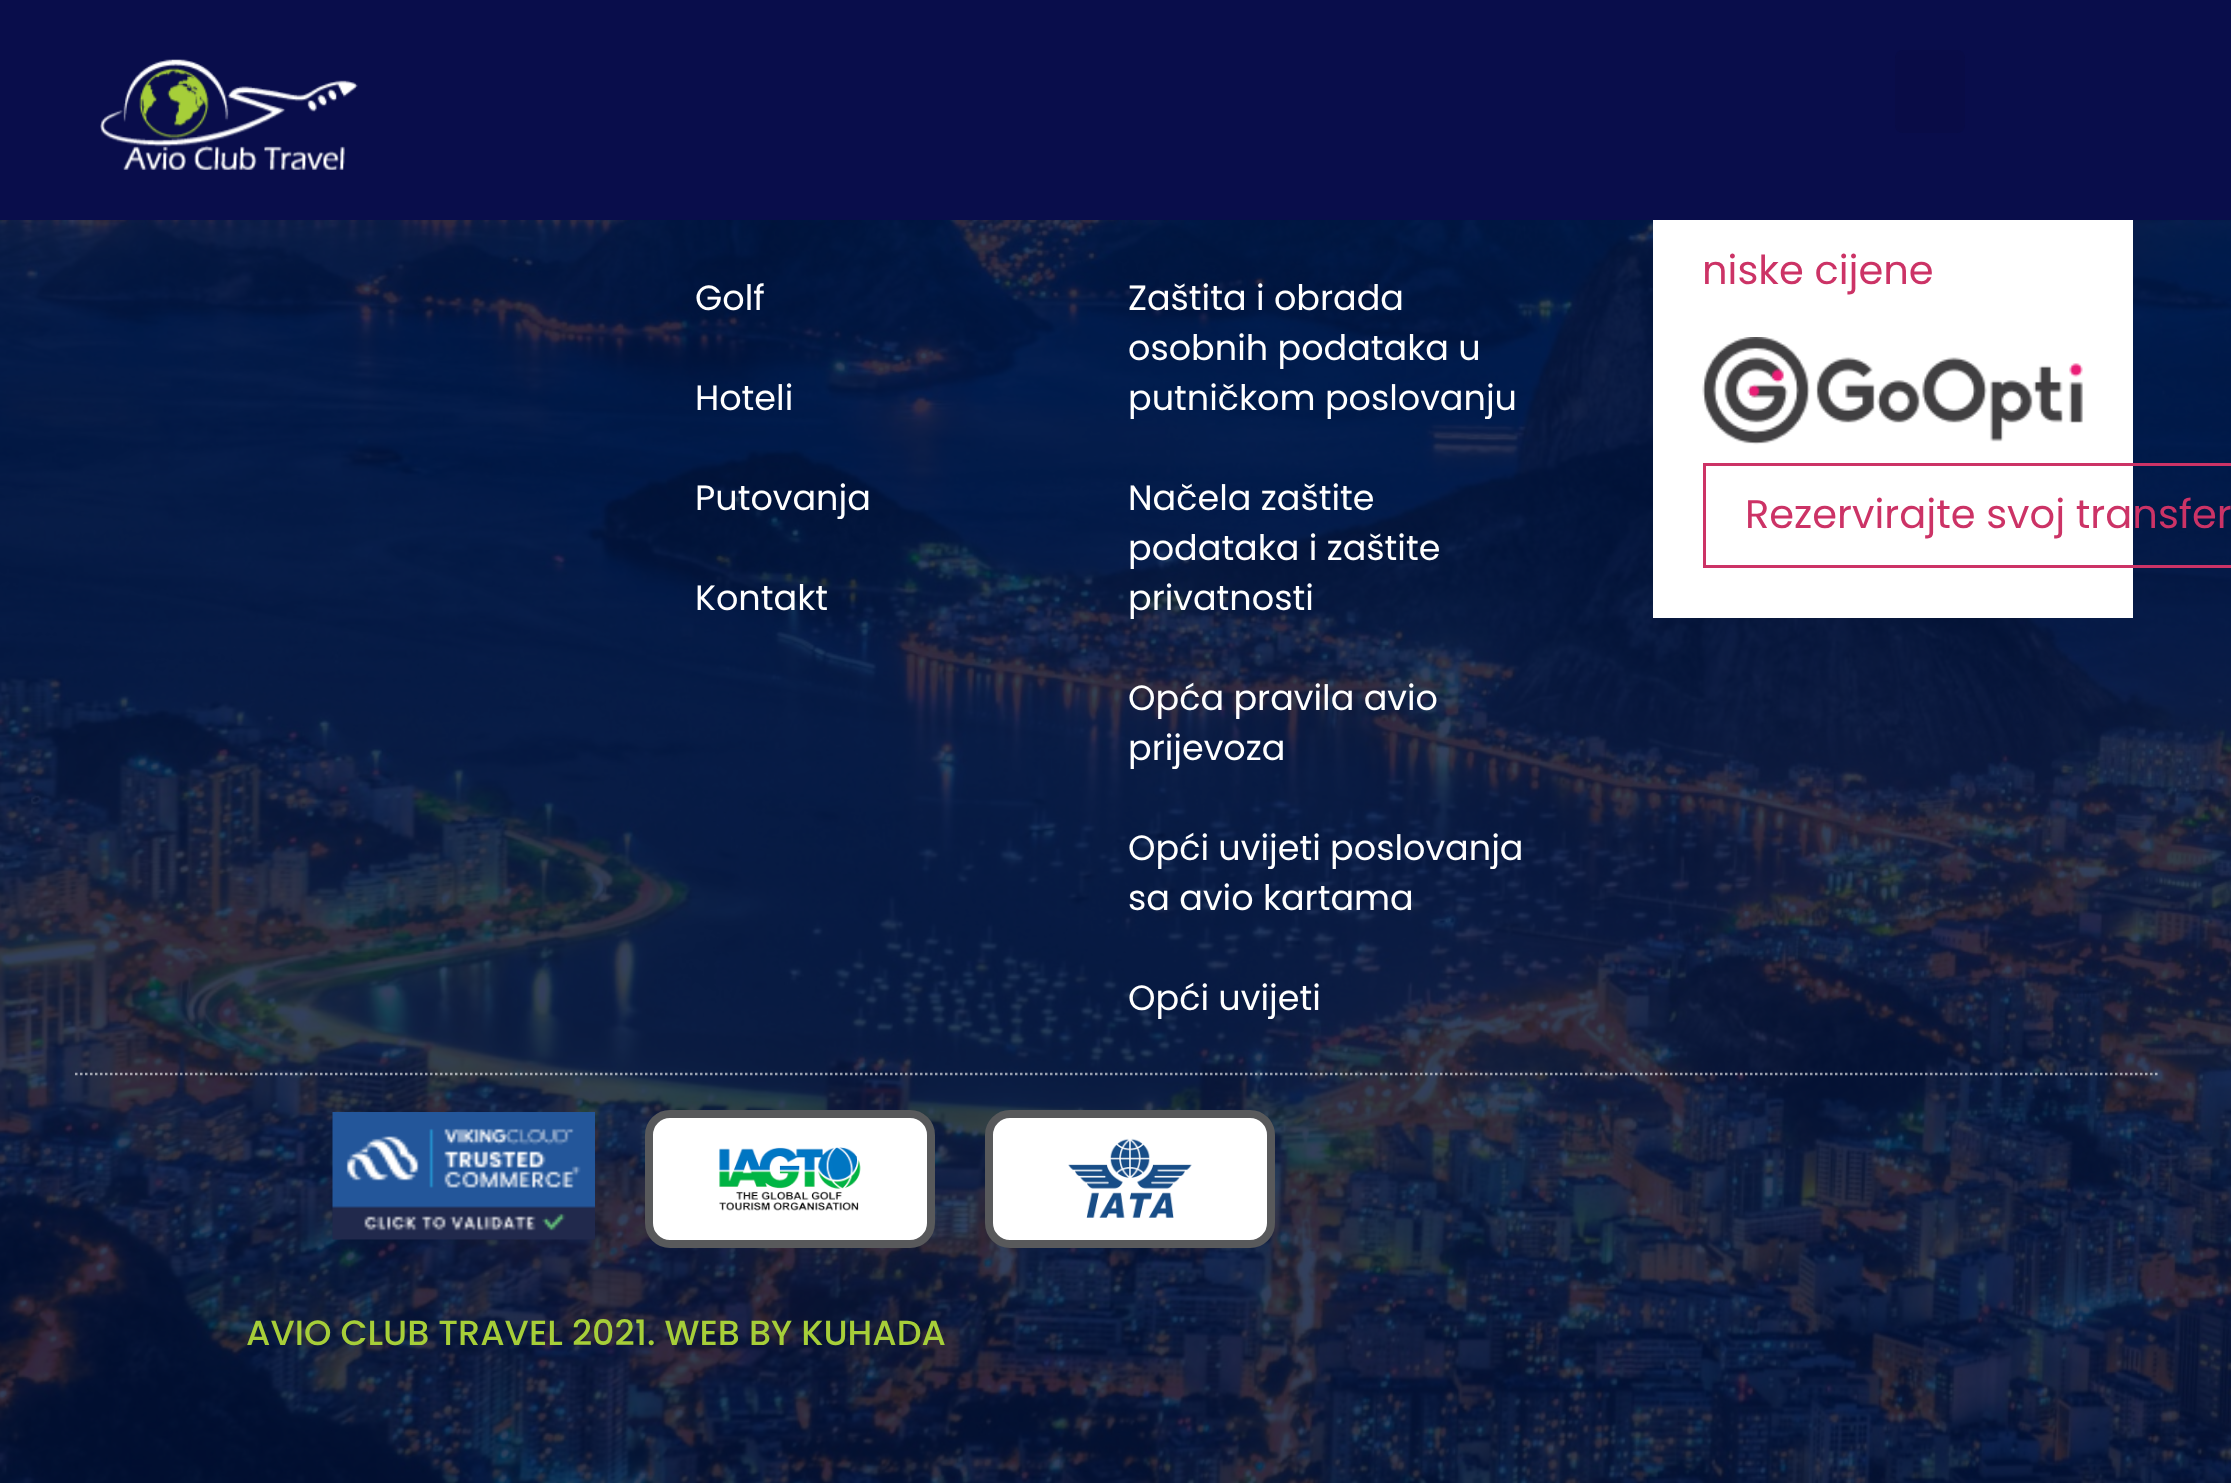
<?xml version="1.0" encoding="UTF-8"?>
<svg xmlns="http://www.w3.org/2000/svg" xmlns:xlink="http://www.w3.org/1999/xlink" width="2231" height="1483">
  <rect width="100%" height="100%" fill="#ffffff" />
  <rect width="2231" height="220" fill="#090d4b" />
  <image x="100" y="59" width="258" height="111" xlink:href="image1.png" />
  <rect x="1895" y="50" width="70" height="83" rx="8" fill="#090c47" />
  <image x="0" y="220" width="2231" height="1263" xlink:href="image2.png" />
  <rect x="1653" y="220" width="480" height="398" fill="#ffffff" />
  <image x="1702" y="337" width="381" height="108" xlink:href="image3.png" />
  <rect x="1704.5" y="464.5" width="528" height="102" fill="none" stroke="#cc3366" stroke-width="3" />
  <path d="M 75 1074 h 2082.5" fill="none" stroke="#ffffff" stroke-opacity="0.59" stroke-width="2.5" stroke-dasharray="2.5 2.5" />
  <image x="332" y="1112" width="263" height="128" xlink:href="image4.png" />
  <rect x="649" y="1114" width="282" height="130" rx="21" fill="#ffffff" stroke="#58595b" stroke-width="8" />
  <image x="719" y="1147" width="142" height="64" xlink:href="image5.png" />
  <rect x="989" y="1114" width="282" height="130" rx="21" fill="#ffffff" stroke="#58595b" stroke-width="8" />
  <image x="1068" y="1138" width="124" height="80" xlink:href="image6.png" />
  <text x="695" y="310" style="font-family: Poppins; font-size: 35px; fill: #ffffff">Golf</text>
  <text x="695" y="410" style="font-family: Poppins; font-size: 35px; fill: #ffffff">Hoteli</text>
  <text x="695" y="510" style="font-family: Poppins; font-size: 35px; fill: #ffffff">Putovanja</text>
  <text x="695" y="610" style="font-family: Poppins; font-size: 35px; fill: #ffffff">Kontakt</text>
  <text x="1128" y="310" style="font-family: Poppins; font-size: 35px; fill: #ffffff">Zaštita i obrada</text>
  <text x="1128" y="360" style="font-family: Poppins; font-size: 35px; fill: #ffffff">osobnih podataka u</text>
  <text x="1128" y="410" style="font-family: Poppins; font-size: 35px; fill: #ffffff">putničkom poslovanju</text>
  <text x="1128" y="510" style="font-family: Poppins; font-size: 35px; fill: #ffffff">Načela zaštite</text>
  <text x="1128" y="560" style="font-family: Poppins; font-size: 35px; fill: #ffffff">podataka i zaštite</text>
  <text x="1128" y="610" style="font-family: Poppins; font-size: 35px; fill: #ffffff">privatnosti</text>
  <text x="1128" y="710" style="font-family: Poppins; font-size: 35px; fill: #ffffff">Opća pravila avio</text>
  <text x="1128" y="760" style="font-family: Poppins; font-size: 35px; fill: #ffffff">prijevoza</text>
  <text x="1128" y="860" style="font-family: Poppins; font-size: 35px; fill: #ffffff">Opći uvijeti poslovanja</text>
  <text x="1128" y="910" style="font-family: Poppins; font-size: 35px; fill: #ffffff">sa avio kartama</text>
  <text x="1128" y="1010" style="font-family: Poppins; font-size: 35px; fill: #ffffff">Opći uvijeti</text>
  <text x="1702" y="284" style="font-family: Poppins; font-size: 40px; fill: #cc3366">niske cijene</text>
  <text x="1745" y="528" style="font-family: Poppins; font-size: 40px; fill: #cc3366">Rezervirajte svoj transfer</text>
  <text x="246" y="1345" style="font-family: Poppins; font-size: 35px; font-weight: 500; fill: #a6ce39">AVIO CLUB TRAVEL 2021. WEB BY KUHADA</text>
</svg>
